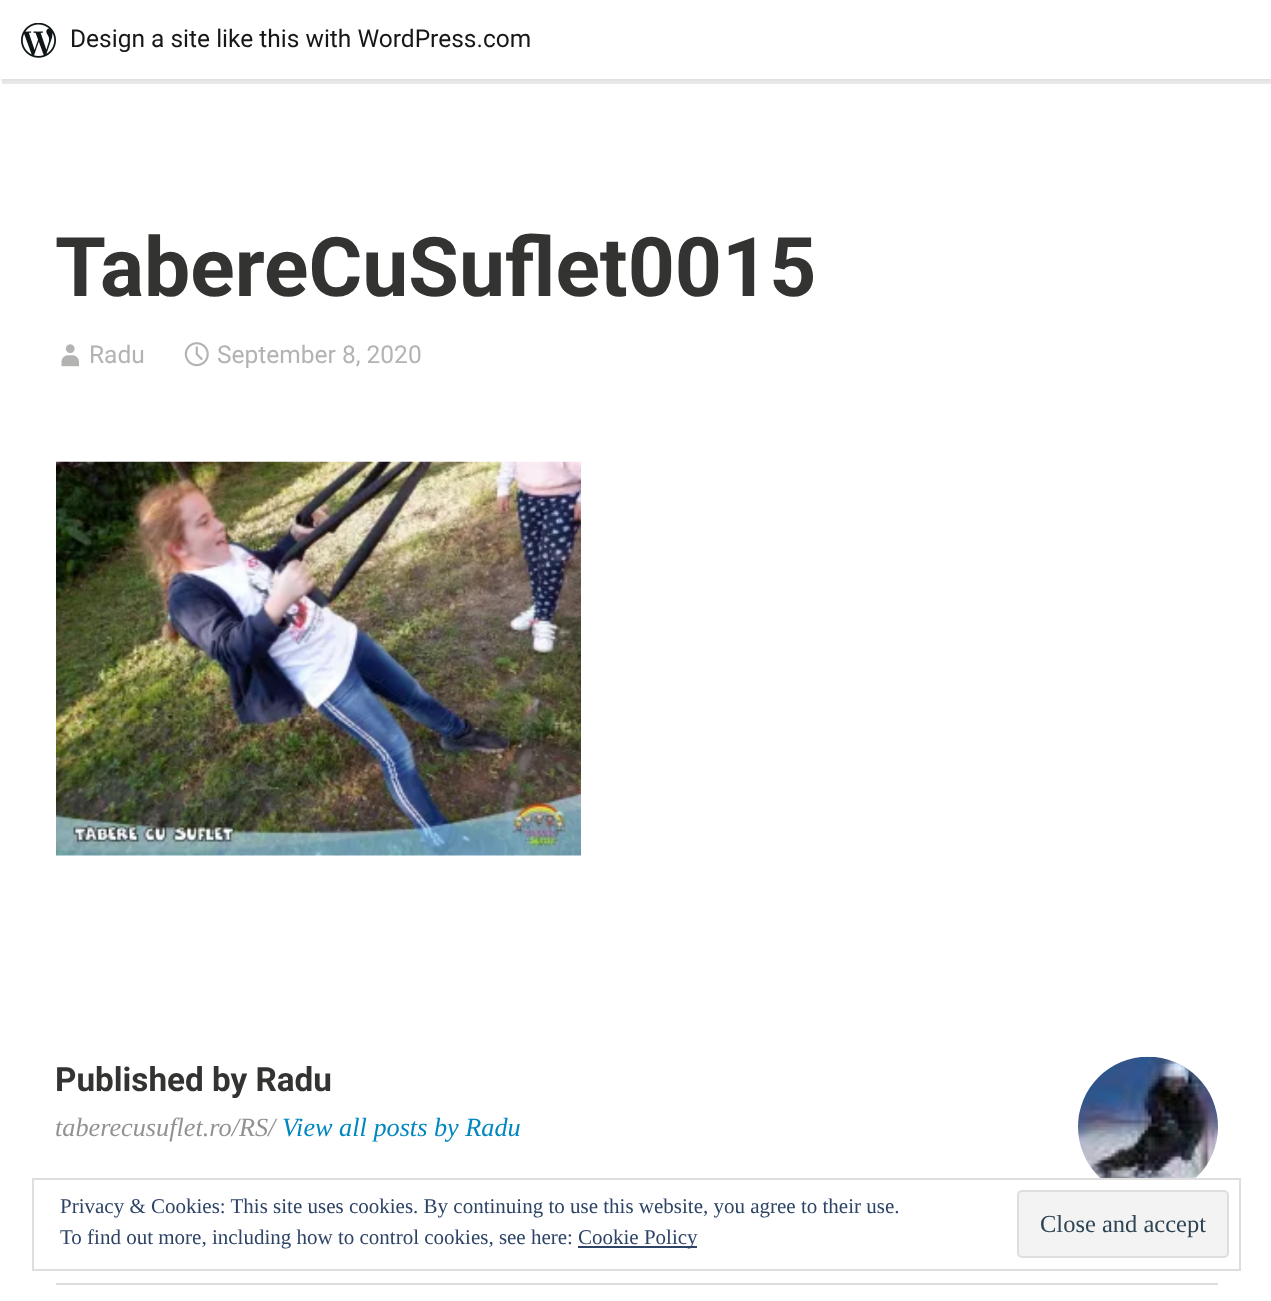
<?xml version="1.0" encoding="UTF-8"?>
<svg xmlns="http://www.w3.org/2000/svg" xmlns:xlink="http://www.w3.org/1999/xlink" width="1271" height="1301">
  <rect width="100%" height="100%" fill="#ffffff" />
  <rect y="2" width="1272" height="79" fill="#000000" fill-opacity="0.05" filter="blur(2px)" />
  <path d="M 2 79 v 5 h 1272 v -79 h -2 v 74 z" fill="#000000" fill-opacity="0.08" />
  <rect width="1271" height="79" fill="#ffffff" />
  <image x="21" y="23" width="35" height="35" xlink:href="image1.png" />
  <image x="61" y="344" width="18" height="23" xlink:href="image2.png" />
  <image x="184" y="342" width="25" height="25" xlink:href="image3.png" />
  <image x="56" y="461" width="525" height="395" xlink:href="image4.png" />
  <image x="1078" y="1056" width="140" height="122" xlink:href="image5.png" />
  <rect x="56" y="1283" width="1162" height="2" fill="#dddddd" />
  <rect x="33" y="1179" width="1207" height="91" fill="none" stroke="#dedede" stroke-width="2" />
  <rect x="578" y="1246" width="119" height="2" fill="#2e4467" />
  <rect x="1018" y="1191" width="210" height="66" rx="4" fill="#f3f3f3" stroke="#dedede" stroke-width="2" />
  <text x="70" y="47" style="font-family: Roboto; font-size: 24.5px; fill: #171717">Design a site like this with WordPress.com</text>
  <text x="55" y="296" style="font-family: Roboto; font-size: 82.25px; font-weight: bold; fill: #333332">TabereCuSuflet0015</text>
  <text x="89" y="363" style="font-family: Roboto; font-size: 24.5px; fill: #b3b3b1">Radu</text>
  <text x="217" y="363" style="font-family: Roboto; font-size: 24.5px; fill: #b3b3b1">September 8, 2020</text>
  <text x="55" y="1091" style="font-family: Roboto; font-size: 33.25px; font-weight: bold; fill: #333332">Published by Radu</text>
  <text x="55" y="1136" style="font-family: Liberation Serif; font-size: 26.25px; font-style: italic; fill: #929292">taberecusuflet.ro/RS/</text>
  <text x="282" y="1136" style="font-family: Liberation Serif; font-size: 26.25px; font-style: italic; fill: #0087be">View all posts by Radu</text>
  <text x="60" y="1213" style="font-family: Liberation Serif; font-size: 21px; fill: #2e4467">Privacy &amp; Cookies: This site uses cookies. By continuing to use this website, you agree to their use.</text>
  <text x="60" y="1244" style="font-family: Liberation Serif; font-size: 21px; fill: #2e4467">To find out more, including how to control cookies, see here:</text>
  <text x="578" y="1244" style="font-family: Liberation Serif; font-size: 21px; fill: #2e4467">Cookie Policy</text>
  <text x="1040" y="1232" style="font-family: Liberation Serif; font-size: 24.5px; fill: #2e4453">Close and accept</text>
</svg>
